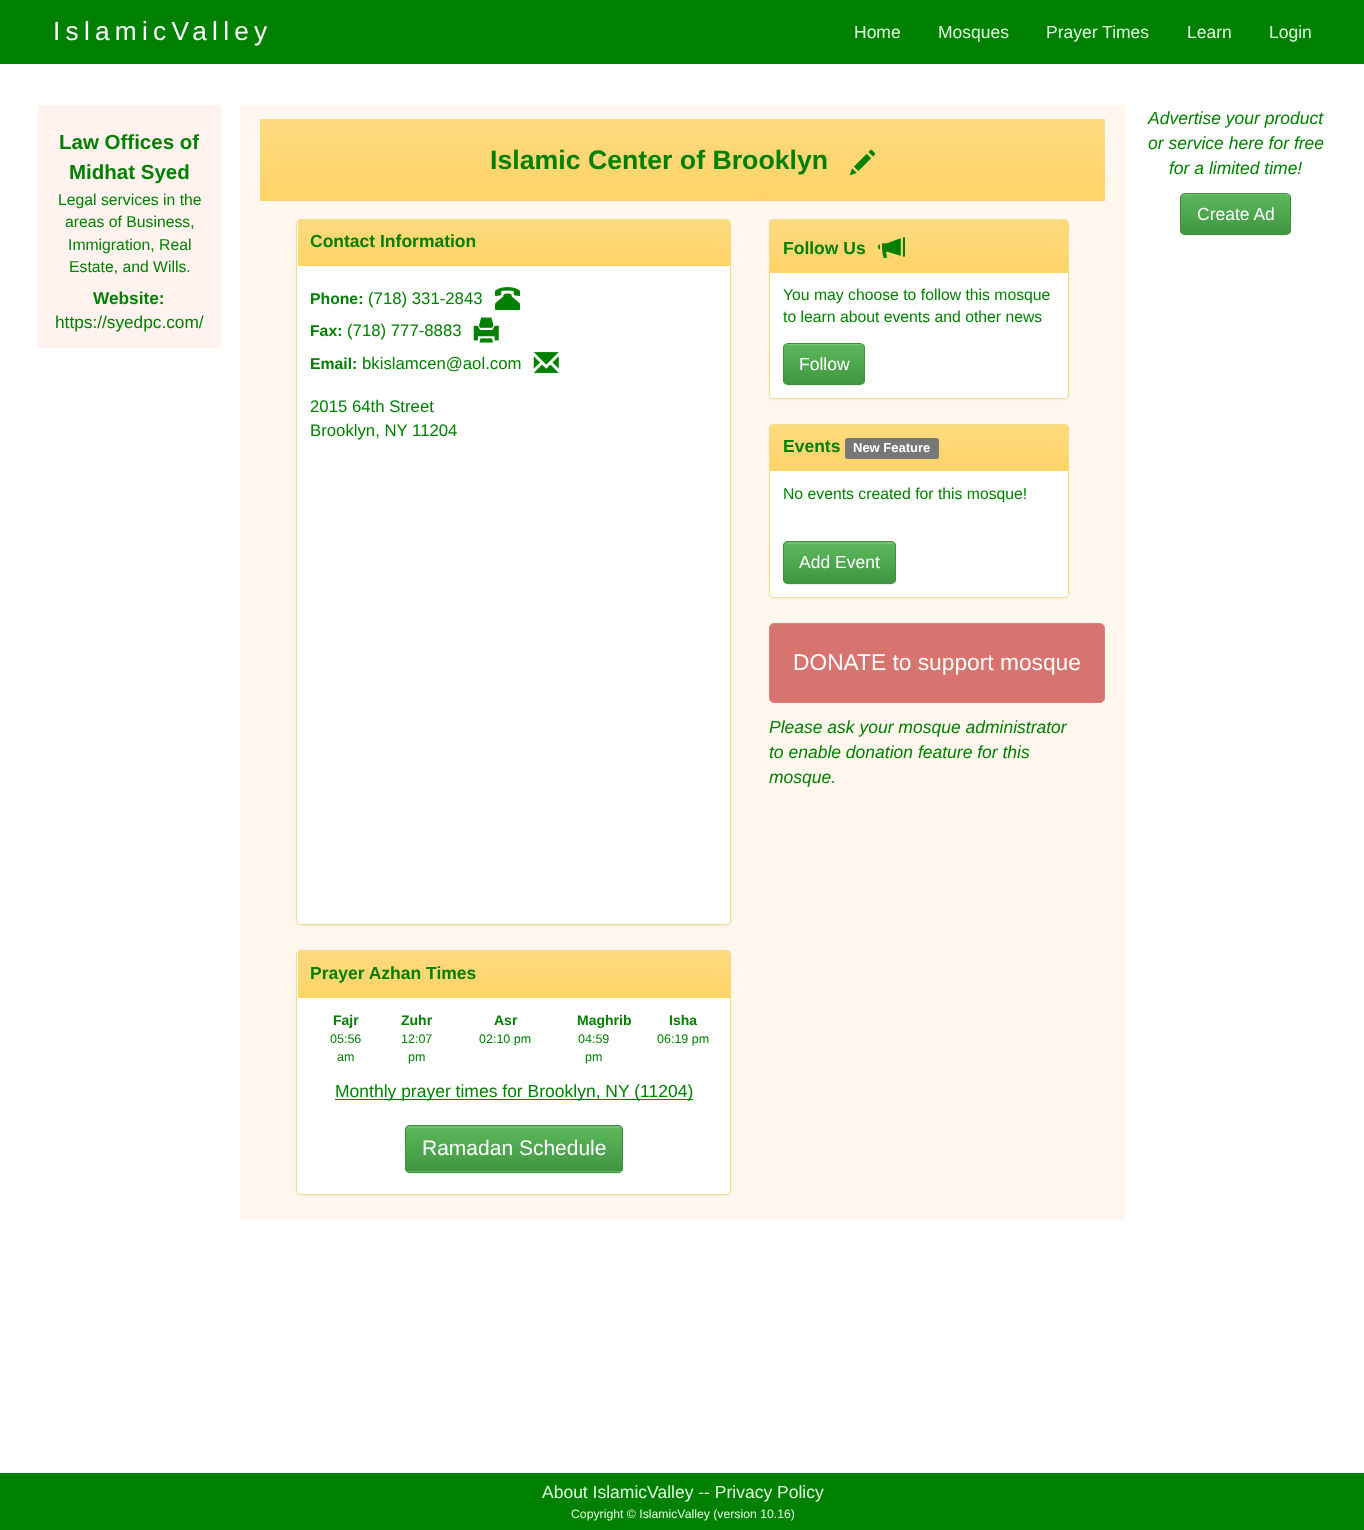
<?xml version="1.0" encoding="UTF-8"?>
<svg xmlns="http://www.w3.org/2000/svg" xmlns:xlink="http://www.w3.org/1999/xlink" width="1364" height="1530">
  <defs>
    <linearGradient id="g1" gradientUnits="userSpaceOnUse" x1="683" y1="119" x2="683" y2="201"><stop offset="0" stop-color="#ffda7f" /><stop offset="1" stop-color="#ffd366" /></linearGradient>
    <linearGradient id="g2" gradientUnits="userSpaceOnUse" x1="514" y1="220" x2="514" y2="266"><stop offset="0" stop-color="#ffda7f" /><stop offset="1" stop-color="#ffd366" /></linearGradient>
    <linearGradient id="g3" gradientUnits="userSpaceOnUse" x1="514" y1="951" x2="514" y2="998"><stop offset="0" stop-color="#ffda7f" /><stop offset="1" stop-color="#ffd366" /></linearGradient>
    <clipPath id="clip1"><rect x="405" y="1125" width="218" height="48" rx="5" /></clipPath>
    <linearGradient id="g4" gradientUnits="userSpaceOnUse" x1="514" y1="1126" x2="514" y2="1171"><stop offset="0" stop-color="#5cb85c" /><stop offset="1" stop-color="#419641" /></linearGradient>
    <linearGradient id="g5" gradientUnits="userSpaceOnUse" x1="919" y1="220" x2="919" y2="273"><stop offset="0" stop-color="#ffda7f" /><stop offset="1" stop-color="#ffd366" /></linearGradient>
    <clipPath id="clip2"><rect x="783" y="343" width="82" height="42" rx="5" /></clipPath>
    <linearGradient id="g6" gradientUnits="userSpaceOnUse" x1="824" y1="344" x2="824" y2="384"><stop offset="0" stop-color="#5cb85c" /><stop offset="1" stop-color="#419641" /></linearGradient>
    <linearGradient id="g7" gradientUnits="userSpaceOnUse" x1="919" y1="425" x2="919" y2="471"><stop offset="0" stop-color="#ffda7f" /><stop offset="1" stop-color="#ffd366" /></linearGradient>
    <clipPath id="clip3"><rect x="783" y="541" width="113" height="43" rx="5" /></clipPath>
    <linearGradient id="g8" gradientUnits="userSpaceOnUse" x1="839" y1="543" x2="839" y2="583"><stop offset="0" stop-color="#5cb85c" /><stop offset="1" stop-color="#419641" /></linearGradient>
    <clipPath id="clip4"><rect x="1180" y="193" width="111" height="42" rx="5" /></clipPath>
    <linearGradient id="g9" gradientUnits="userSpaceOnUse" x1="1236" y1="194" x2="1236" y2="234"><stop offset="0" stop-color="#5cb85c" /><stop offset="1" stop-color="#419641" /></linearGradient>
  </defs>
  <rect width="100%" height="100%" fill="#ffffff" />
  <rect width="1364" height="64" fill="#008000" />
  <rect x="38" y="105" width="183" height="243" fill="#fff2ef" />
  <rect x="240" y="105" width="885" height="1115" fill="#fff6ee" />
  <rect x="260" y="119" width="845" height="82" fill="url(#g1)" />
  <image x="849" y="149" width="27" height="27" xlink:href="image1.png" />
  <rect x="296" y="220" width="435" height="706" rx="5" fill="#000000" fill-opacity="0.05" filter="blur(1px)" />
  <rect x="296.5" y="219.5" width="434" height="705" rx="4.5" fill="#ffffff" stroke="#f0dd88" />
  <rect x="298" y="220" width="432" height="46" fill="url(#g2)" />
  <image x="495" y="287" width="25" height="23" xlink:href="image2.png" />
  <image x="473" y="317" width="26" height="26" xlink:href="image3.png" />
  <image x="533" y="352" width="26" height="21" xlink:href="image4.png" />
  <rect x="296" y="951" width="435" height="245" rx="5" fill="#000000" fill-opacity="0.05" filter="blur(1px)" />
  <rect x="296.5" y="950.5" width="434" height="244" rx="4.5" fill="#ffffff" stroke="#f0dd88" />
  <rect x="298" y="951" width="432" height="47" fill="url(#g3)" />
  <rect x="335" y="1099" width="358" height="1" fill="#008000" />
  <rect x="405" y="1126" width="218" height="48" rx="5" fill="#000000" fill-opacity="0.07" filter="blur(0.5px)" />
  <rect x="405" y="1125" width="218" height="48" rx="5" fill="#5cb85c" />
  <g clip-path="url(#clip1)">
    <rect x="405" y="1126" width="218" height="45" fill="url(#g4)" />
  </g>
  <path d="M 410 1128 h 208 c 2 0 3 1 3 3 c 0 -3 -1 -5 -4 -5 h -209 c -2 1 -2 3 -2 5 c 0 -2 2 -3 4 -3 z" fill="#74c274" />
  <rect x="405.5" y="1125.5" width="217" height="47" rx="4.5" fill="none" stroke="#3e8f3e" />
  <rect x="769" y="220" width="300" height="180" rx="5" fill="#000000" fill-opacity="0.05" filter="blur(1px)" />
  <rect x="769.5" y="219.5" width="299" height="179" rx="4.5" fill="#ffffff" stroke="#f0dd88" />
  <rect x="770" y="220" width="298" height="53" fill="url(#g5)" />
  <image x="877" y="237" width="28" height="21" xlink:href="image5.png" />
  <rect x="783" y="344" width="82" height="42" rx="5" fill="#000000" fill-opacity="0.07" filter="blur(0.5px)" />
  <g clip-path="url(#clip2)">
    <rect x="783" y="344" width="82" height="40" fill="url(#g6)" />
  </g>
  <path d="M 788 345 h 72 c 2 0 4 2 4 4 c 0 -8 -11 -5 -16 -5 h -48 c -5 0 -16 -3 -16 5 c 0 -2 1 -4 4 -4 z" fill="#74c374" />
  <rect x="783.5" y="343.5" width="81" height="41" rx="4.5" fill="none" stroke="#3e8f3e" />
  <rect x="769" y="425" width="300" height="174" rx="5" fill="#000000" fill-opacity="0.05" filter="blur(1px)" />
  <rect x="769.5" y="424.5" width="299" height="173" rx="4.5" fill="#ffffff" stroke="#f0dd88" />
  <rect x="770" y="425" width="298" height="46" fill="url(#g7)" />
  <rect x="845" y="438" width="94" height="21" rx="3" fill="#777777" />
  <rect x="783" y="543" width="113" height="42" rx="5" fill="#000000" fill-opacity="0.07" filter="blur(0.5px)" />
  <rect x="783" y="541" width="113" height="43" rx="5" fill="#5cb85c" />
  <g clip-path="url(#clip3)">
    <rect x="783" y="543" width="113" height="40" fill="url(#g8)" />
  </g>
  <path d="M 788 544 h 103 c 2 0 4 1 4 4 c 0 -10 -18 -5 -21 -5 h -69 c -3 0 -21 -5 -21 5 c 0 -3 1 -4 4 -4 z" fill="#74c374" />
  <rect x="783.5" y="541.5" width="112" height="42" rx="4.5" fill="none" stroke="#3e8f3e" />
  <rect x="769.5" y="623.5" width="335" height="79" rx="4.5" fill="#d7746f" stroke="#e37f79" />
  <rect x="1180" y="194" width="111" height="42" rx="5" fill="#000000" fill-opacity="0.07" filter="blur(0.5px)" />
  <g clip-path="url(#clip4)">
    <rect x="1180" y="194" width="111" height="40" fill="url(#g9)" />
  </g>
  <path d="M 1185 195 h 101 c 2 0 4 2 4 4 c 0 -9 -17 -5 -21 -5 h -67 c -4 0 -21 -4 -21 5 c 0 -2 2 -4 4 -4 z" fill="#74c374" />
  <rect x="1180.5" y="193.5" width="110" height="41" rx="4.5" fill="none" stroke="#3e8f3e" />
  <rect y="1473" width="1364" height="57" fill="#008000" />
  <text x="53" y="40" style="font-family: Liberation Sans; font-size: 26.25px; letter-spacing: 5.25px; fill: #ffffff">IslamicValley</text>
  <text x="854" y="38" style="font-family: Liberation Sans; font-size: 17.5px; fill: #ddffdd">Home</text>
  <text x="938" y="38" style="font-family: Liberation Sans; font-size: 17.5px; fill: #ddffdd">Mosques</text>
  <text x="1046" y="38" style="font-family: Liberation Sans; font-size: 17.5px; fill: #ddffdd">Prayer Times</text>
  <text x="1187" y="38" style="font-family: Liberation Sans; font-size: 17.5px; fill: #ddffdd">Learn</text>
  <text x="1269" y="38" style="font-family: Liberation Sans; font-size: 17.5px; fill: #ddffdd">Login</text>
  <text x="59" y="149" style="font-family: Liberation Sans; font-size: 20.5px; font-weight: bold; fill: #008000">Law Offices of</text>
  <text x="69" y="179" style="font-family: Liberation Sans; font-size: 20.5px; font-weight: bold; fill: #008000">Midhat Syed</text>
  <text x="58" y="205" style="font-family: Liberation Sans; font-size: 15.75px; fill: #008000">Legal services in the</text>
  <text x="65" y="227" style="font-family: Liberation Sans; font-size: 15.75px; fill: #008000">areas of Business,</text>
  <text x="68" y="250" style="font-family: Liberation Sans; font-size: 15.75px; fill: #008000">Immigration, Real</text>
  <text x="69" y="272" style="font-family: Liberation Sans; font-size: 15.75px; fill: #008000">Estate, and Wills.</text>
  <text x="93" y="304" style="font-family: Liberation Sans; font-size: 17.25px; font-weight: bold; fill: #008000">Website:</text>
  <text x="55" y="328" style="font-family: Liberation Sans; font-size: 17.25px; fill: #008000">https://syedpc.com/</text>
  <text x="490" y="169" style="font-family: Liberation Sans; font-size: 26.7px; font-weight: bold; fill: #008000">Islamic Center of Brooklyn</text>
  <text x="310" y="247" style="font-family: Liberation Sans; font-size: 17.5px; font-weight: bold; fill: #008000">Contact Information</text>
  <text x="310" y="304" style="font-family: Liberation Sans; font-size: 15.75px; font-weight: bold; fill: #008000">Phone:</text>
  <text x="368" y="304" style="font-family: Liberation Sans; font-size: 16.75px; fill: #008000">(718) 331-2843</text>
  <text x="310" y="336" style="font-family: Liberation Sans; font-size: 15.75px; font-weight: bold; fill: #008000">Fax:</text>
  <text x="347" y="336" style="font-family: Liberation Sans; font-size: 16.75px; fill: #008000">(718) 777-8883</text>
  <text x="310" y="369" style="font-family: Liberation Sans; font-size: 15.75px; font-weight: bold; fill: #008000">Email:</text>
  <text x="362" y="369" style="font-family: Liberation Sans; font-size: 16.75px; fill: #008000">bkislamcen@aol.com</text>
  <text x="310" y="412" style="font-family: Liberation Sans; font-size: 16.75px; fill: #008000">2015 64th Street</text>
  <text x="310" y="436" style="font-family: Liberation Sans; font-size: 16.75px; fill: #008000">Brooklyn, NY 11204</text>
  <text x="310" y="979" style="font-family: Liberation Sans; font-size: 17.5px; font-weight: bold; fill: #008000">Prayer Azhan Times</text>
  <text x="333" y="1025" style="font-family: Liberation Sans; font-size: 14px; font-weight: bold; fill: #008000">Fajr</text>
  <text x="401" y="1025" style="font-family: Liberation Sans; font-size: 14px; font-weight: bold; fill: #008000">Zuhr</text>
  <text x="494" y="1025" style="font-family: Liberation Sans; font-size: 14px; font-weight: bold; fill: #008000">Asr</text>
  <text x="577" y="1025" style="font-family: Liberation Sans; font-size: 14px; font-weight: bold; fill: #008000">Maghrib</text>
  <text x="669" y="1025" style="font-family: Liberation Sans; font-size: 14px; font-weight: bold; fill: #008000">Isha</text>
  <text x="330" y="1043" style="font-family: Liberation Sans; font-size: 12.5px; fill: #008000">05:56</text>
  <text x="337" y="1061" style="font-family: Liberation Sans; font-size: 12.5px; fill: #008000">am</text>
  <text x="401" y="1043" style="font-family: Liberation Sans; font-size: 12.5px; fill: #008000">12:07</text>
  <text x="408" y="1061" style="font-family: Liberation Sans; font-size: 12.5px; fill: #008000">pm</text>
  <text x="479" y="1043" style="font-family: Liberation Sans; font-size: 12.5px; fill: #008000">02:10 pm</text>
  <text x="578" y="1043" style="font-family: Liberation Sans; font-size: 12.5px; fill: #008000">04:59</text>
  <text x="585" y="1061" style="font-family: Liberation Sans; font-size: 12.5px; fill: #008000">pm</text>
  <text x="657" y="1043" style="font-family: Liberation Sans; font-size: 12.5px; fill: #008000">06:19 pm</text>
  <text x="335" y="1097" style="font-family: Liberation Sans; font-size: 17.5px; fill: #008000">Monthly prayer times for Brooklyn, NY (11204)</text>
  <text x="422" y="1155" style="font-family: Liberation Sans; font-size: 21px; fill: #ffffff">Ramadan Schedule</text>
  <text x="783" y="254" style="font-family: Liberation Sans; font-size: 17.5px; font-weight: bold; fill: #008000">Follow Us</text>
  <text x="783" y="300" style="font-family: Liberation Sans; font-size: 15.75px; fill: #008000">You may choose to follow this mosque</text>
  <text x="783" y="322" style="font-family: Liberation Sans; font-size: 15.75px; fill: #008000">to learn about events and other news</text>
  <text x="799" y="370" style="font-family: Liberation Sans; font-size: 17.5px; fill: #ffffff">Follow</text>
  <text x="783" y="452" style="font-family: Liberation Sans; font-size: 17.5px; font-weight: bold; fill: #008000">Events</text>
  <text x="853" y="452" style="font-family: Liberation Sans; font-size: 13px; font-weight: bold; fill: #ffffff">New Feature</text>
  <text x="783" y="499" style="font-family: Liberation Sans; font-size: 15.75px; fill: #008000">No events created for this mosque!</text>
  <text x="799" y="568" style="font-family: Liberation Sans; font-size: 17.5px; fill: #ffffff">Add Event</text>
  <text x="793" y="670" style="font-family: Liberation Sans; font-size: 22.75px; fill: #fffcf9">DONATE to support mosque</text>
  <text x="769" y="733" style="font-family: Liberation Sans; font-size: 17.5px; font-style: italic; fill: #008000">Please ask your mosque administrator</text>
  <text x="769" y="758" style="font-family: Liberation Sans; font-size: 17.5px; font-style: italic; fill: #008000">to enable donation feature for this</text>
  <text x="769" y="783" style="font-family: Liberation Sans; font-size: 17.5px; font-style: italic; fill: #008000">mosque.</text>
  <text x="1148" y="124" style="font-family: Liberation Sans; font-size: 17.5px; font-style: italic; fill: #008000">Advertise your product</text>
  <text x="1148" y="149" style="font-family: Liberation Sans; font-size: 17.5px; font-style: italic; fill: #008000">or service here for free</text>
  <text x="1169" y="174" style="font-family: Liberation Sans; font-size: 17.5px; font-style: italic; fill: #008000">for a limited time!</text>
  <text x="1197" y="220" style="font-family: Liberation Sans; font-size: 17.5px; fill: #ffffff">Create Ad</text>
  <text x="542" y="1498" style="font-family: Liberation Sans; font-size: 17.5px; fill: #ddffdd">About IslamicValley -- Privacy Policy</text>
  <text x="571" y="1518" style="font-family: Liberation Sans; font-size: 12.25px; fill: #ddffdd">Copyright © IslamicValley (version 10.16)</text>
</svg>
